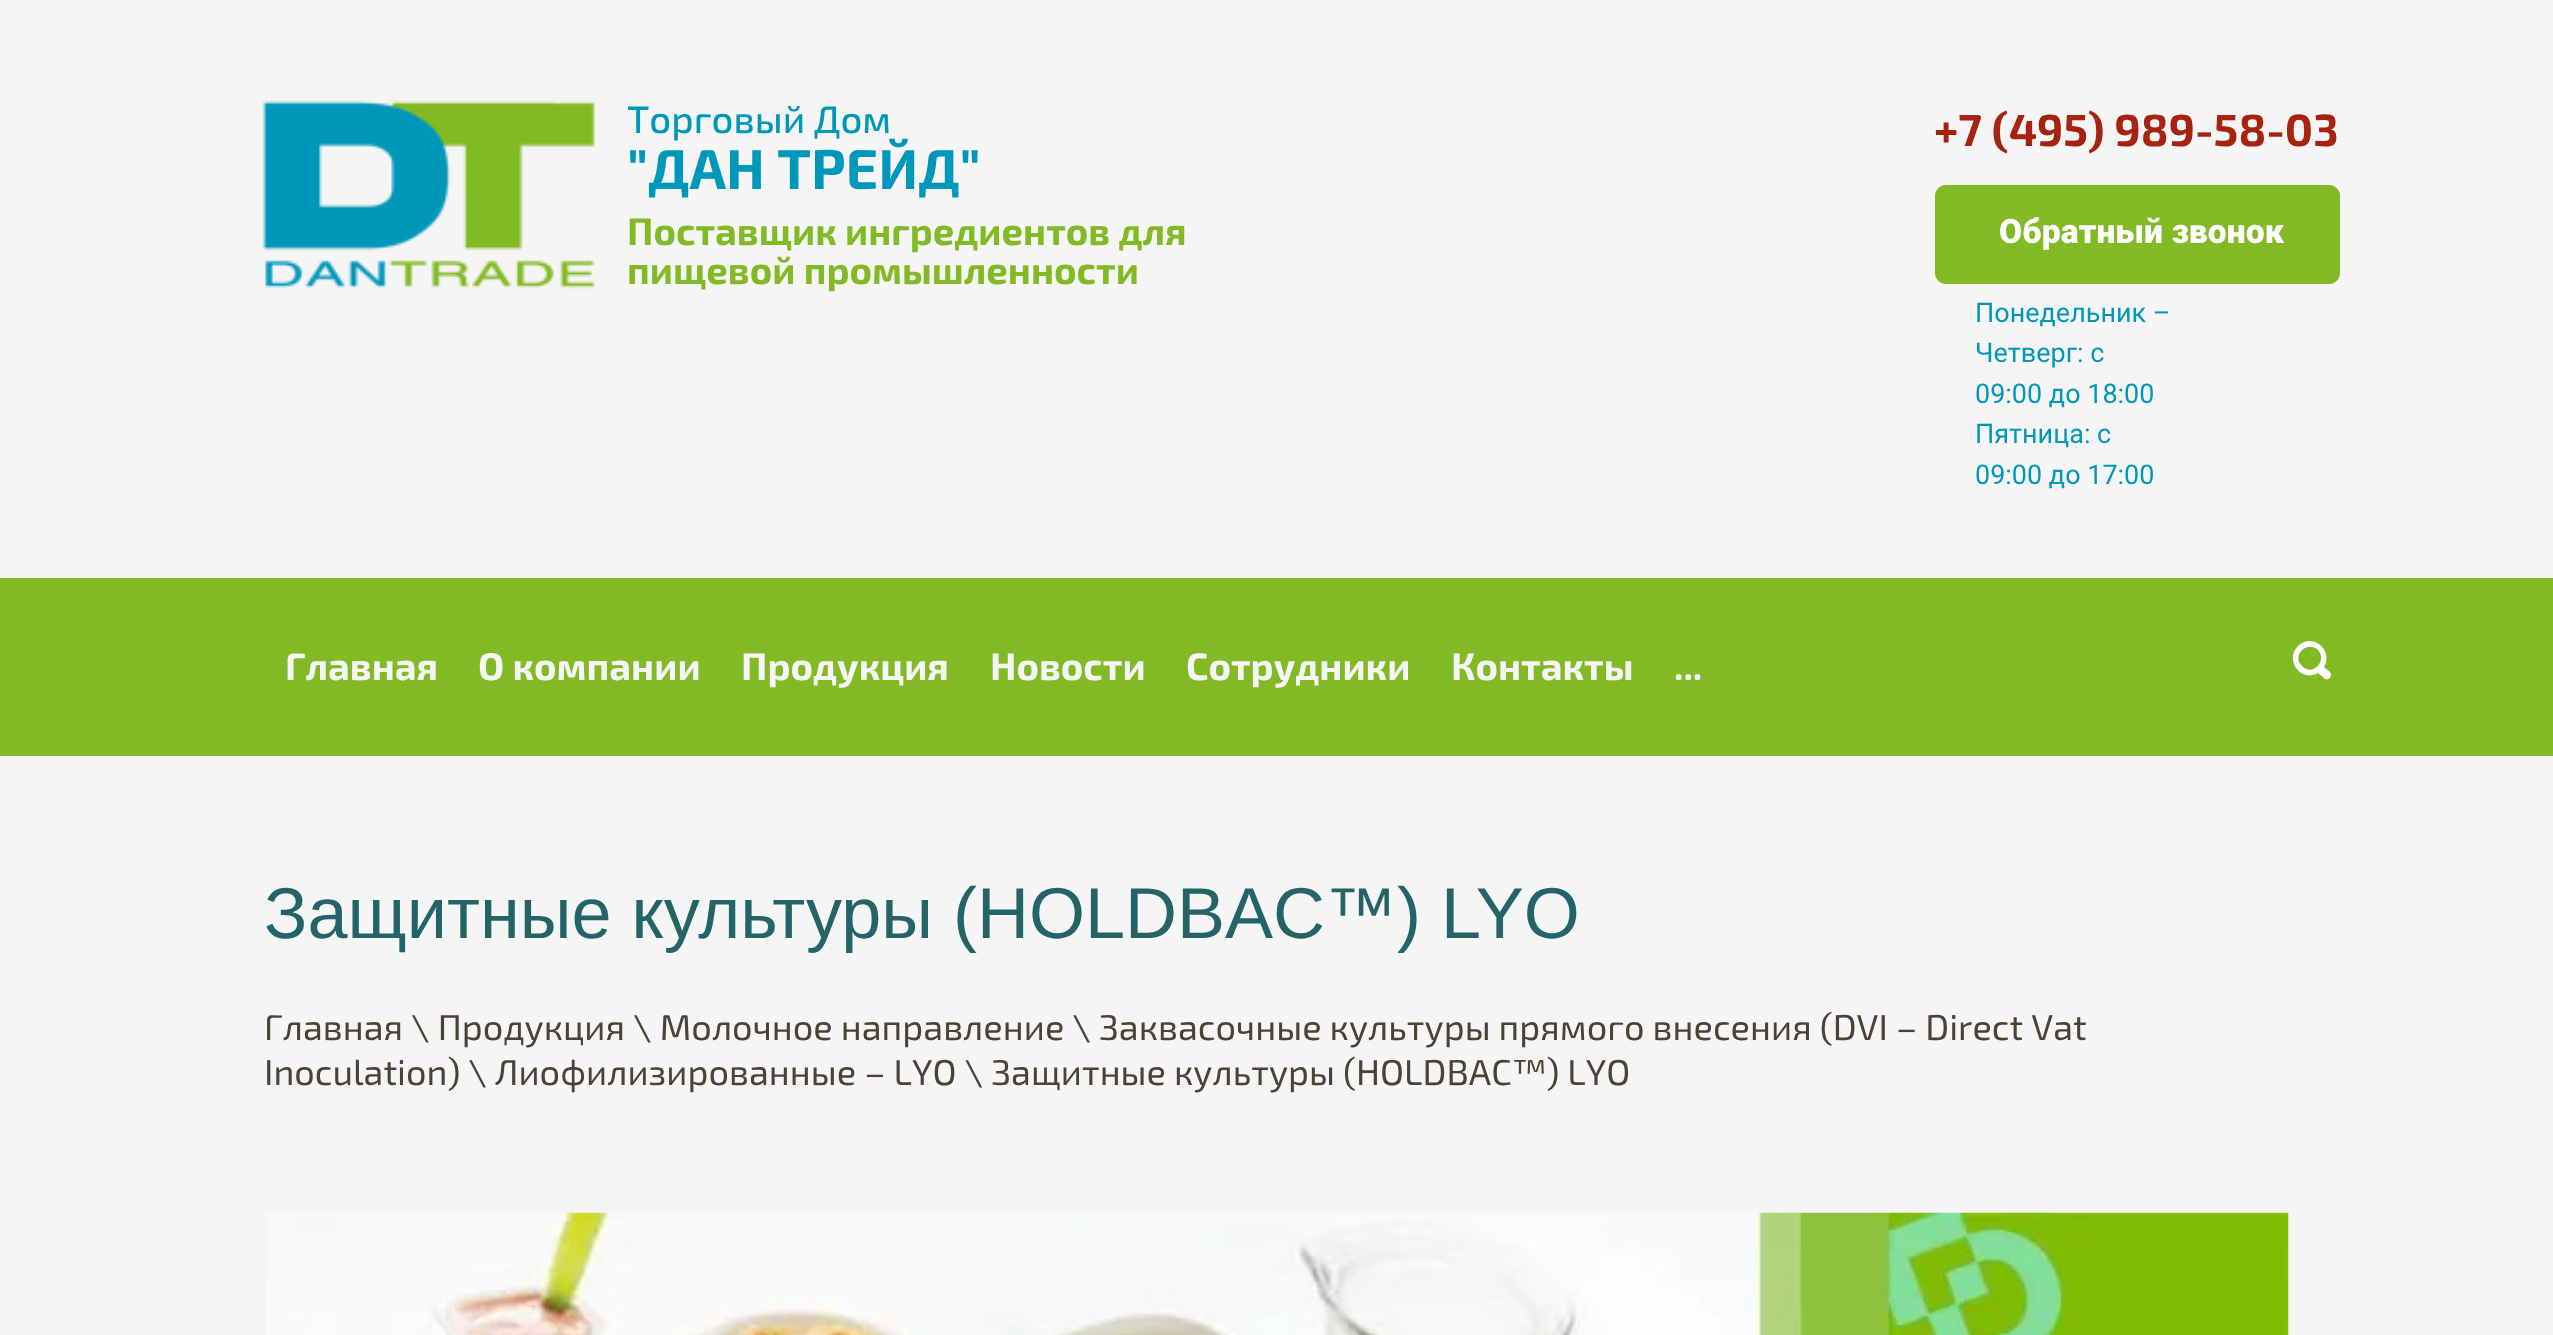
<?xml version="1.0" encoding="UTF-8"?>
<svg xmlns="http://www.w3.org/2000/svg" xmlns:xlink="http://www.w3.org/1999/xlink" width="2553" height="1335">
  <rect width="100%" height="100%" fill="#f6f5f5" />
  <image x="262" y="100" width="333" height="189" xlink:href="image1.png" />
  <rect x="1935" y="185" width="405" height="99" rx="11" fill="#81ba24" />
  <rect y="578" width="2553" height="178" fill="#81ba24" />
  <path d="M 2330 672 c 3 3 -1 9 -5 7 l -7 -6 c -17 10 -34 -13 -20 -27 c 14 -14 36 4 26 21 z m -12 -22 c -11 -10 -27 6 -16 16 c 10 11 26 -5 16 -16 z" fill="#ffffff" />
  <image x="266" y="1212" width="2023" height="123" xlink:href="image2.png" />
  <text x="627" y="133" style="font-family: 'Exo 2'; font-size: 38.25px; font-weight: 500; fill: #0098ba">Торговый Дом</text>
  <text x="627" y="189" style="font-family: 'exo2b'; font-size: 56.25px; font-weight: bold; fill: #0098ba">"ДАН ТРЕЙД"</text>
  <text x="627" y="245" style="font-family: 'exo2b'; font-size: 38.25px; font-weight: bold; fill: #81ba24">Поставщик ингредиентов для</text>
  <text x="627" y="284" style="font-family: 'exo2b'; font-size: 38.25px; font-weight: bold; fill: #81ba24">пищевой промышленности</text>
  <text x="1934" y="146" style="font-family: 'exo2b'; font-size: 45px; font-weight: bold; fill: #a72310">+7 (495) 989-58-03</text>
  <text x="1999" y="243" style="font-family: Roboto; font-size: 33.75px; font-weight: 900; fill: #ffffff">Обратный звонок</text>
  <text x="1975" y="322" style="font-family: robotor; font-size: 27px; fill: #0098ba">Понедельник –</text>
  <text x="1975" y="362" style="font-family: robotor; font-size: 27px; fill: #0098ba">Четверг: с</text>
  <text x="1975" y="403" style="font-family: robotor; font-size: 27px; fill: #0098ba">09:00 до 18:00</text>
  <text x="1975" y="443" style="font-family: robotor; font-size: 27px; fill: #0098ba">Пятница: с</text>
  <text x="1975" y="484" style="font-family: robotor; font-size: 27px; fill: #0098ba">09:00 до 17:00</text>
  <text x="285" y="680" style="font-family: 'exo2b'; font-size: 38.25px; font-weight: bold; fill: #f6f5f5">Главная</text>
  <text x="478" y="680" style="font-family: 'exo2b'; font-size: 38.25px; font-weight: bold; fill: #f6f5f5">О компании</text>
  <text x="741" y="680" style="font-family: 'exo2b'; font-size: 38.25px; font-weight: bold; fill: #f6f5f5">Продукция</text>
  <text x="990" y="680" style="font-family: 'exo2b'; font-size: 38.25px; font-weight: bold; fill: #f6f5f5">Новости</text>
  <text x="1186" y="680" style="font-family: 'exo2b'; font-size: 38.25px; font-weight: bold; fill: #f6f5f5">Сотрудники</text>
  <text x="1451" y="680" style="font-family: 'exo2b'; font-size: 38.25px; font-weight: bold; fill: #f6f5f5">Контакты</text>
  <text x="1674" y="680" style="font-family: 'exo2b'; font-size: 38.25px; font-weight: bold; fill: #f6f5f5">...</text>
  <text x="264" y="938" style="font-family: Liberation Sans; font-size: 72px; fill: #246469">Защитные культуры (HOLDBAC™) LYO</text>
  <text x="264" y="1040" style="font-family: 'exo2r'; font-size: 36px; fill: #4a4335">Главная \ Продукция \ Молочное направление \ Заквасочные культуры прямого внесения (DVI – Direct Vat</text>
  <text x="264" y="1085" style="font-family: 'exo2r'; font-size: 36px; fill: #4a4335">Inoculation) \ Лиофилизированные – LYO \ Защитные культуры (HOLDBAC™) LYO</text>
</svg>
